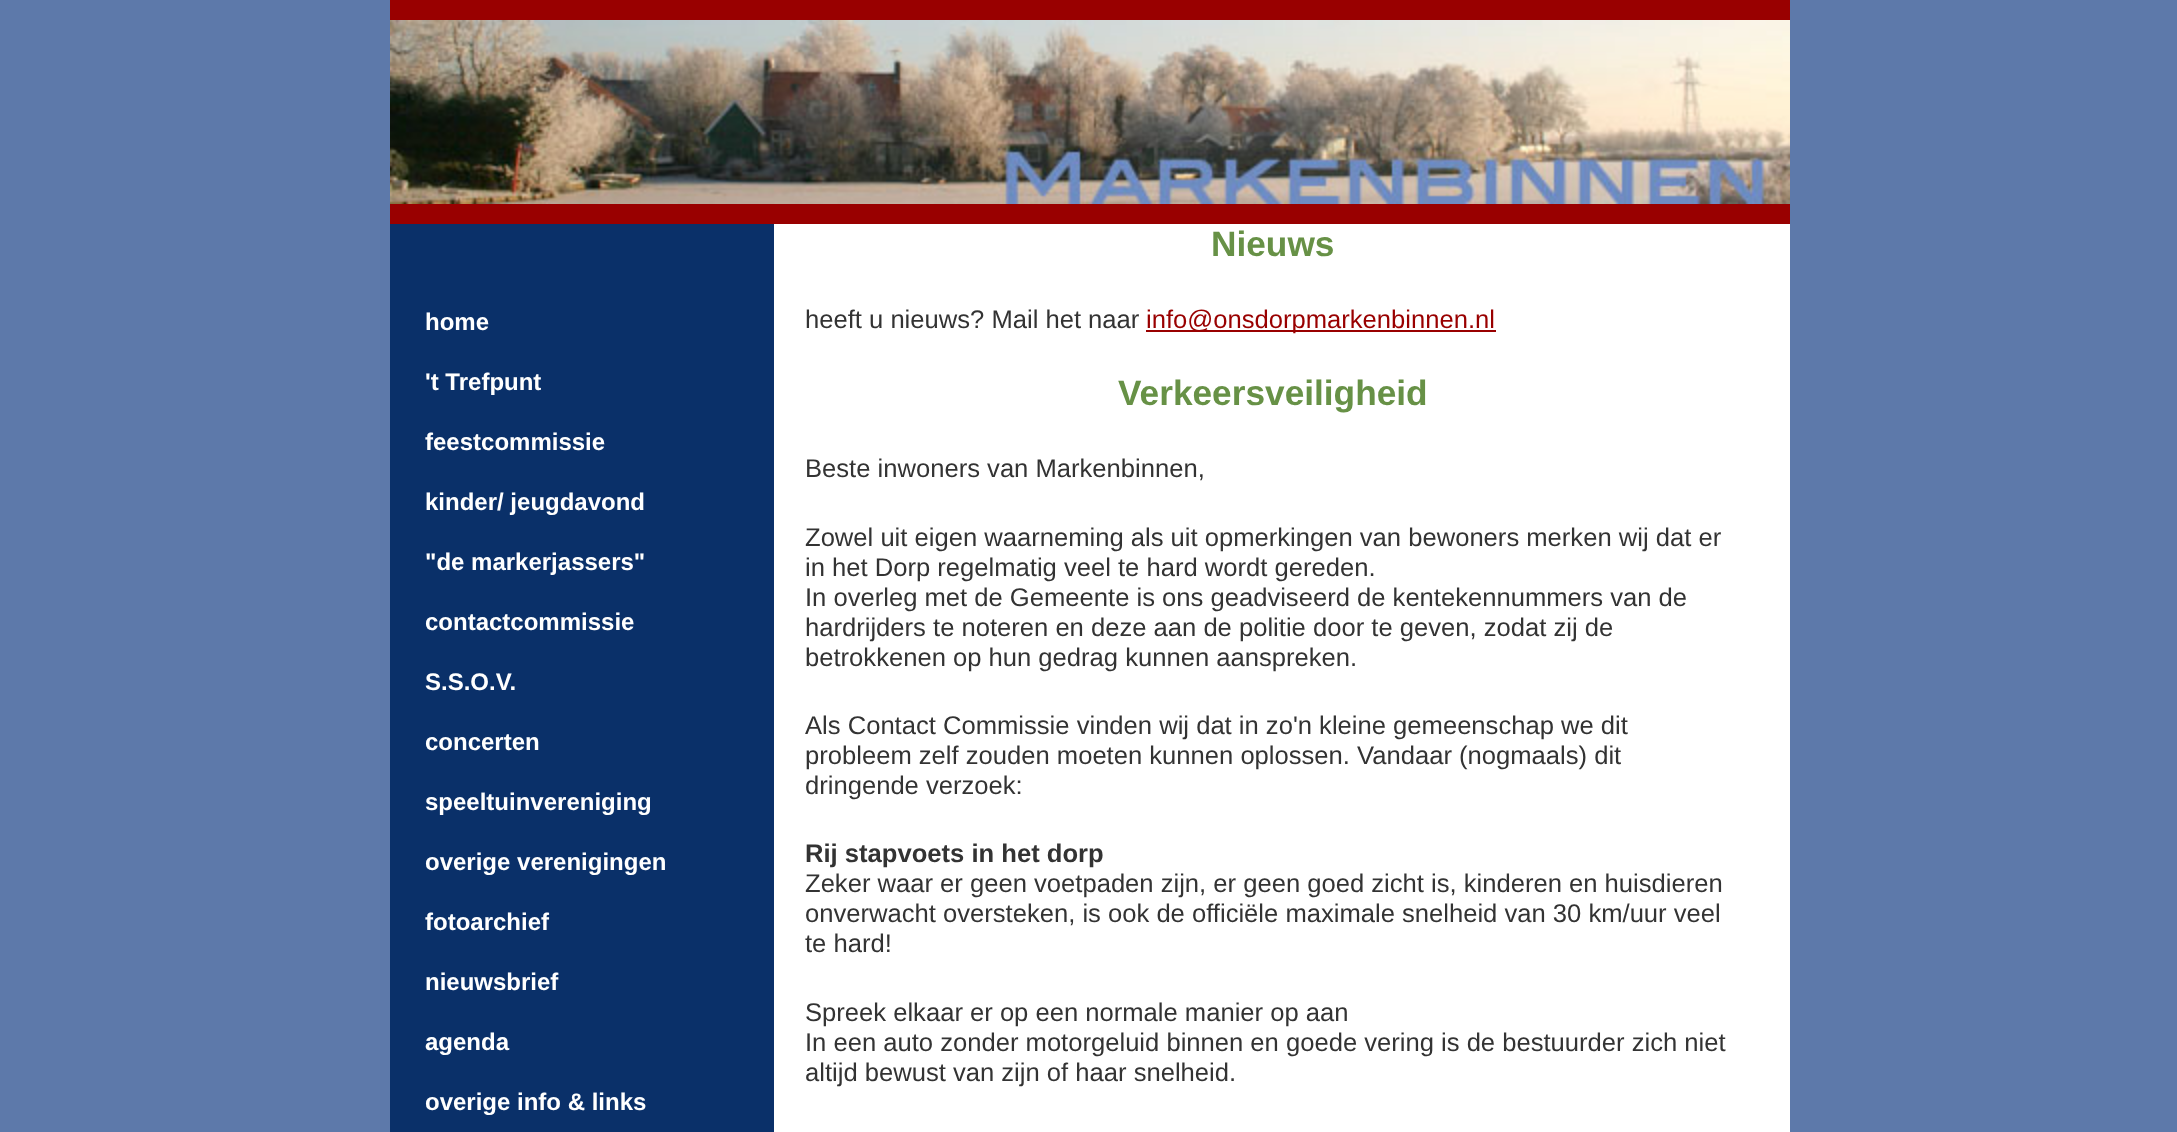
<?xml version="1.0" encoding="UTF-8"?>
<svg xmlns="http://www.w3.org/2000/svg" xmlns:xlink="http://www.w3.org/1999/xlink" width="2177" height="1132">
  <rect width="100%" height="100%" fill="#5d79aa" />
  <rect x="774" y="224" width="1016" height="908" fill="#ffffff" />
  <rect x="390" width="1400" height="224" fill="#990000" />
  <image x="390" y="20" width="1400" height="184" xlink:href="image1.png" />
  <rect x="390" y="224" width="384" height="908" fill="#0a3069" />
  <rect x="1146" y="330" width="350" height="2" fill="#990000" />
  <text x="425" y="330" style="font-family: Liberation Sans; font-size: 24px; font-weight: bold; fill: #ffffff">home</text>
  <text x="425" y="390" style="font-family: Liberation Sans; font-size: 24px; font-weight: bold; fill: #ffffff">'t Trefpunt</text>
  <text x="425" y="450" style="font-family: Liberation Sans; font-size: 24px; font-weight: bold; fill: #ffffff">feestcommissie</text>
  <text x="425" y="510" style="font-family: Liberation Sans; font-size: 24px; font-weight: bold; fill: #ffffff">kinder/ jeugdavond</text>
  <text x="425" y="570" style="font-family: Liberation Sans; font-size: 24px; font-weight: bold; fill: #ffffff">"de markerjassers"</text>
  <text x="425" y="630" style="font-family: Liberation Sans; font-size: 24px; font-weight: bold; fill: #ffffff">contactcommissie</text>
  <text x="425" y="690" style="font-family: Liberation Sans; font-size: 24px; font-weight: bold; fill: #ffffff">S.S.O.V.</text>
  <text x="425" y="750" style="font-family: Liberation Sans; font-size: 24px; font-weight: bold; fill: #ffffff">concerten</text>
  <text x="425" y="810" style="font-family: Liberation Sans; font-size: 24px; font-weight: bold; fill: #ffffff">speeltuinvereniging</text>
  <text x="425" y="870" style="font-family: Liberation Sans; font-size: 24px; font-weight: bold; fill: #ffffff">overige verenigingen</text>
  <text x="425" y="930" style="font-family: Liberation Sans; font-size: 24px; font-weight: bold; fill: #ffffff">fotoarchief</text>
  <text x="425" y="990" style="font-family: Liberation Sans; font-size: 24px; font-weight: bold; fill: #ffffff">nieuwsbrief</text>
  <text x="425" y="1050" style="font-family: Liberation Sans; font-size: 24px; font-weight: bold; fill: #ffffff">agenda</text>
  <text x="425" y="1110" style="font-family: Liberation Sans; font-size: 24px; font-weight: bold; fill: #ffffff">overige info &amp; links</text>
  <text x="1211" y="256" style="font-family: Liberation Sans; font-size: 35.25px; font-weight: bold; fill: #679146">Nieuws</text>
  <text x="805" y="328" style="font-family: Liberation Sans; font-size: 25.6px; fill: #333333">heeft u nieuws? Mail het naar</text>
  <text x="1146" y="328" style="font-family: Liberation Sans; font-size: 25.6px; fill: #990000">info@onsdorpmarkenbinnen.nl</text>
  <text x="1118" y="405" style="font-family: Liberation Sans; font-size: 35.25px; font-weight: bold; fill: #679146">Verkeersveiligheid</text>
  <text x="805" y="477" style="font-family: Liberation Sans; font-size: 25.6px; fill: #333333">Beste inwoners van Markenbinnen,</text>
  <text x="805" y="546" style="font-family: Liberation Sans; font-size: 25.6px; fill: #333333">Zowel uit eigen waarneming als uit opmerkingen van bewoners merken wij dat er</text>
  <text x="805" y="576" style="font-family: Liberation Sans; font-size: 25.6px; fill: #333333">in het Dorp regelmatig veel te hard wordt gereden.</text>
  <text x="805" y="606" style="font-family: Liberation Sans; font-size: 25.6px; fill: #333333">In overleg met de Gemeente is ons geadviseerd de kentekennummers van de</text>
  <text x="805" y="636" style="font-family: Liberation Sans; font-size: 25.6px; fill: #333333">hardrijders te noteren en deze aan de politie door te geven, zodat zij de</text>
  <text x="805" y="666" style="font-family: Liberation Sans; font-size: 25.6px; fill: #333333">betrokkenen op hun gedrag kunnen aanspreken.</text>
  <text x="805" y="734" style="font-family: Liberation Sans; font-size: 25.6px; fill: #333333">Als Contact Commissie vinden wij dat in zo'n kleine gemeenschap we dit</text>
  <text x="805" y="764" style="font-family: Liberation Sans; font-size: 25.6px; fill: #333333">probleem zelf zouden moeten kunnen oplossen. Vandaar (nogmaals) dit</text>
  <text x="805" y="794" style="font-family: Liberation Sans; font-size: 25.6px; fill: #333333">dringende verzoek:</text>
  <text x="805" y="862" style="font-family: Liberation Sans; font-size: 25.6px; font-weight: bold; fill: #333333">Rij stapvoets in het dorp</text>
  <text x="805" y="892" style="font-family: Liberation Sans; font-size: 25.6px; fill: #333333">Zeker waar er geen voetpaden zijn, er geen goed zicht is, kinderen en huisdieren</text>
  <text x="805" y="922" style="font-family: Liberation Sans; font-size: 25.6px; fill: #333333">onverwacht oversteken, is ook de officiële maximale snelheid van 30 km/uur veel</text>
  <text x="805" y="952" style="font-family: Liberation Sans; font-size: 25.6px; fill: #333333">te hard!</text>
  <text x="805" y="1021" style="font-family: Liberation Sans; font-size: 25.6px; fill: #333333">Spreek elkaar er op een normale manier op aan</text>
  <text x="805" y="1051" style="font-family: Liberation Sans; font-size: 25.6px; fill: #333333">In een auto zonder motorgeluid binnen en goede vering is de bestuurder zich niet</text>
  <text x="805" y="1081" style="font-family: Liberation Sans; font-size: 25.6px; fill: #333333">altijd bewust van zijn of haar snelheid.</text>
</svg>
